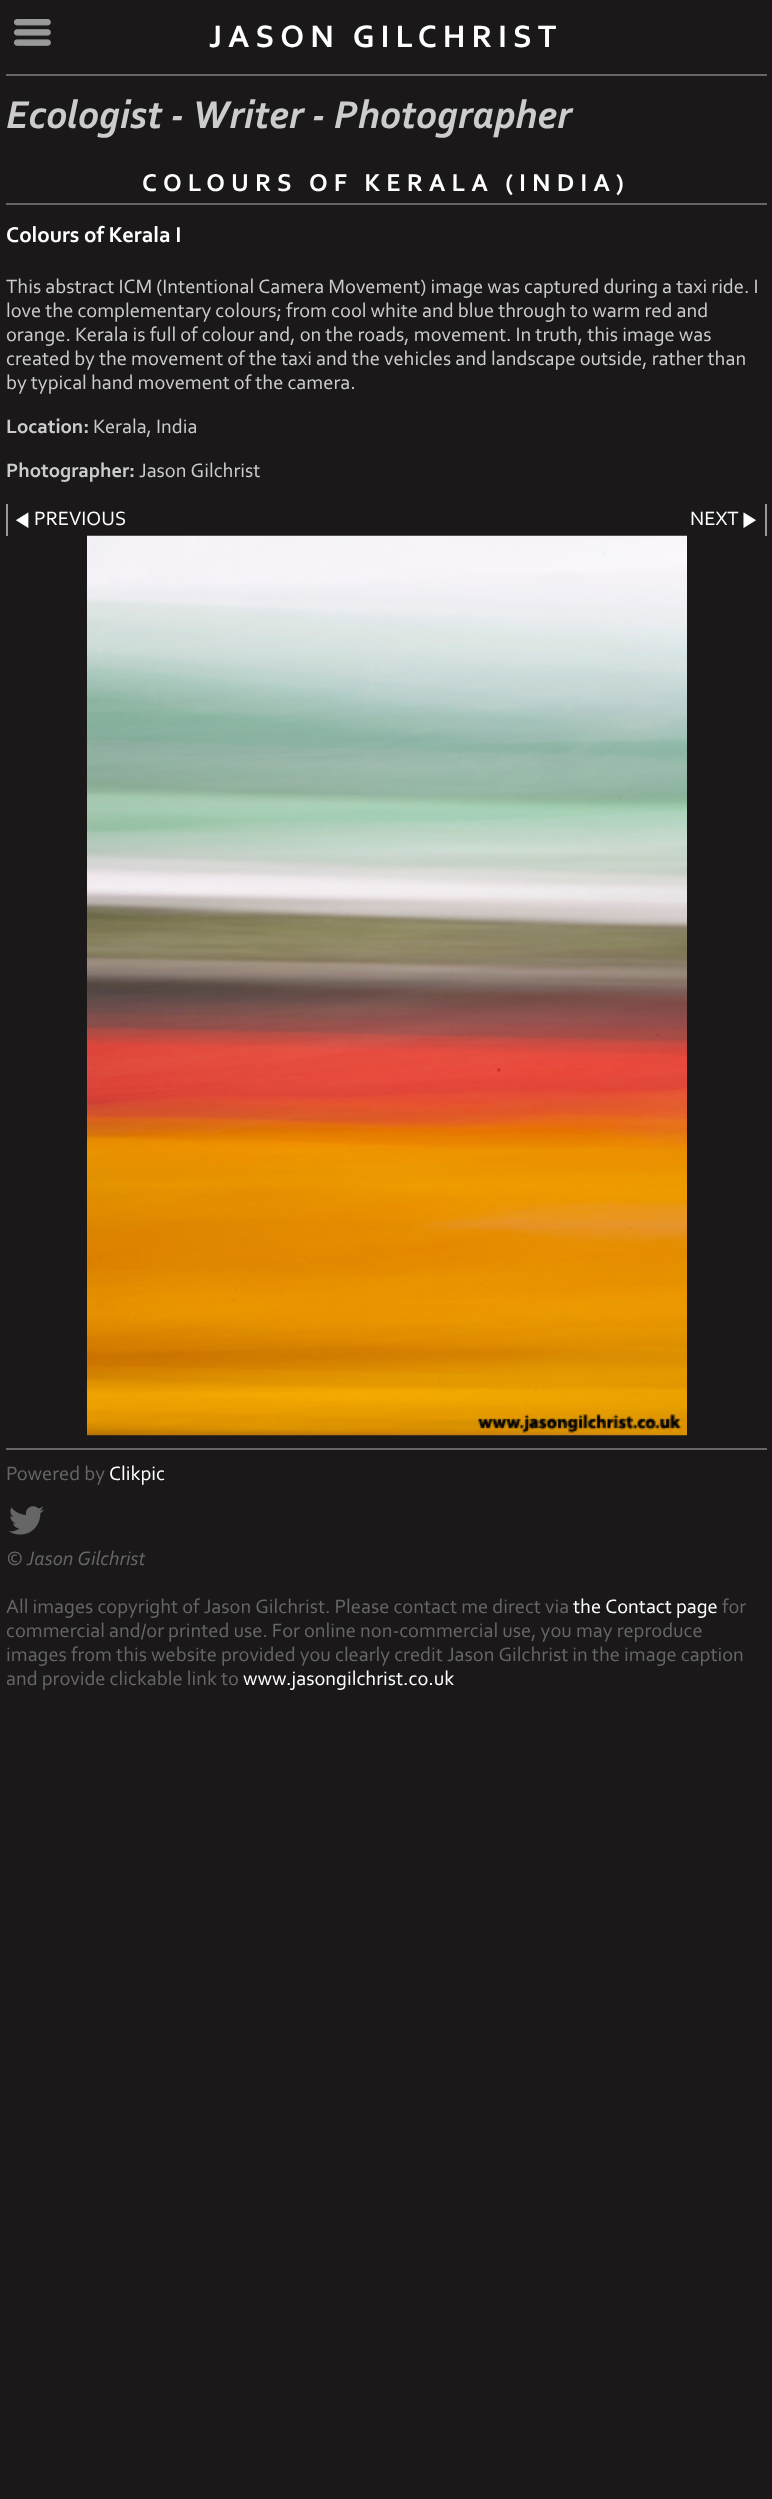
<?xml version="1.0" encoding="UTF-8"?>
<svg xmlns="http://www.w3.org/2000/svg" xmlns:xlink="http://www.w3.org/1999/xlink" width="772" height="2499">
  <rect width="100%" height="100%" fill="#1a1818" />
  <rect x="6" y="74" width="761" height="2" fill="#666666" />
  <image x="13" y="19" width="38" height="27" xlink:href="image1.png" />
  <rect x="6" y="203" width="761" height="2" fill="#666666" />
  <rect x="6" y="504" width="2" height="32" fill="#999999" />
  <image x="16" y="512" width="13" height="16" xlink:href="image2.png" />
  <rect x="765" y="504" width="2" height="32" fill="#999999" />
  <image x="743" y="512" width="13" height="16" xlink:href="image3.png" />
  <image x="87" y="535" width="600" height="901" xlink:href="image4.png" />
  <rect x="6" y="1448" width="761" height="2" fill="#666666" />
  <image x="9" y="1506" width="35" height="29" xlink:href="image5.png" />
  <text x="209" y="47" style="font-family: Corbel; font-size: 32.6px; font-weight: bold; letter-spacing: 6px; fill: #ffffff">JASON GILCHRIST</text>
  <text x="6" y="128" style="font-family: Corbel; font-size: 40.75px; font-weight: bold; font-style: italic; fill: #cccccc">Ecologist - Writer - Photographer</text>
  <text x="142" y="191" style="font-family: Corbel; font-size: 25.5px; font-weight: bold; letter-spacing: 6px; fill: #ffffff">COLOURS OF KERALA (INDIA)</text>
  <text x="6" y="242" style="font-family: Corbel; font-size: 22.5px; font-weight: bold; fill: #ffffff">Colours of Kerala I</text>
  <text x="6" y="293" style="font-family: Corbel; font-size: 20.4px; fill: #cccccc">This abstract ICM (Intentional Camera Movement) image was captured during a taxi ride. I</text>
  <text x="6" y="317" style="font-family: Corbel; font-size: 20.4px; fill: #cccccc">love the complementary colours; from cool white and blue through to warm red and</text>
  <text x="6" y="341" style="font-family: Corbel; font-size: 20.4px; fill: #cccccc">orange. Kerala is full of colour and, on the roads, movement. In truth, this image was</text>
  <text x="6" y="365" style="font-family: Corbel; font-size: 20.4px; fill: #cccccc">created by the movement of the taxi and the vehicles and landscape outside, rather than</text>
  <text x="6" y="389" style="font-family: Corbel; font-size: 20.4px; fill: #cccccc">by typical hand movement of the camera.</text>
  <text x="6" y="433" style="font-family: Corbel; font-size: 20.4px; font-weight: bold; fill: #cccccc">Location:</text>
  <text x="93" y="433" style="font-family: Corbel; font-size: 20.4px; fill: #cccccc">Kerala, India</text>
  <text x="6" y="477" style="font-family: Corbel; font-size: 20.4px; font-weight: bold; fill: #cccccc">Photographer:</text>
  <text x="139" y="477" style="font-family: Corbel; font-size: 20.4px; fill: #cccccc">Jason Gilchrist</text>
  <text x="34" y="525" style="font-family: Corbel; font-size: 20.4px; fill: #ffffff">PREVIOUS</text>
  <text x="690" y="525" style="font-family: Corbel; font-size: 20.4px; fill: #ffffff">NEXT</text>
  <text x="6" y="1480" style="font-family: Corbel; font-size: 20.4px; fill: #666666">Powered by</text>
  <text x="109" y="1480" style="font-family: Corbel; font-size: 20.4px; fill: #ffffff">Clikpic</text>
  <text x="6" y="1565" style="font-family: Corbel; font-size: 20.4px; font-style: italic; fill: #666666">© Jason Gilchrist</text>
  <text x="6" y="1613" style="font-family: Corbel; font-size: 20.4px; fill: #666666">All images copyright of Jason Gilchrist. Please contact me direct via</text>
  <text x="573" y="1613" style="font-family: Corbel; font-size: 20.4px; fill: #ffffff">the Contact page</text>
  <text x="722" y="1613" style="font-family: Corbel; font-size: 20.4px; fill: #666666">for</text>
  <text x="6" y="1637" style="font-family: Corbel; font-size: 20.4px; fill: #666666">commercial and/or printed use. For online non-commercial use, you may reproduce</text>
  <text x="6" y="1661" style="font-family: Corbel; font-size: 20.4px; fill: #666666">images from this website provided you clearly credit Jason Gilchrist in the image caption</text>
  <text x="6" y="1685" style="font-family: Corbel; font-size: 20.4px; fill: #666666">and provide clickable link to</text>
  <text x="243" y="1685" style="font-family: Corbel; font-size: 20.4px; fill: #ffffff">www.jasongilchrist.co.uk</text>
</svg>
